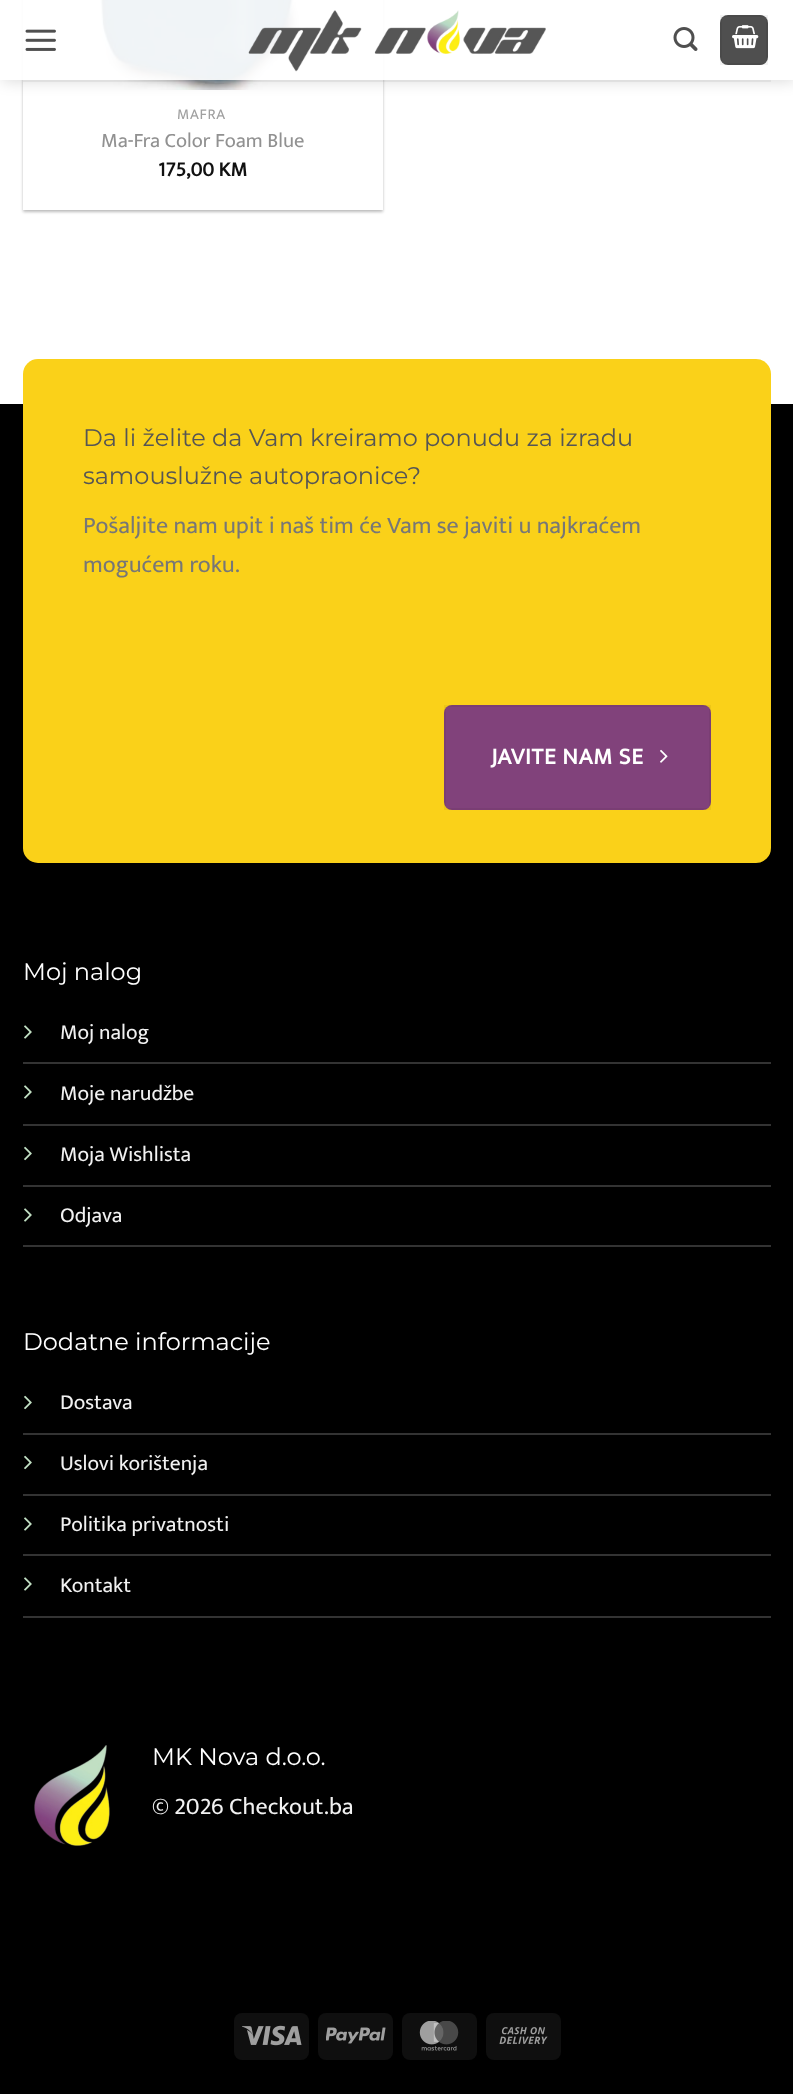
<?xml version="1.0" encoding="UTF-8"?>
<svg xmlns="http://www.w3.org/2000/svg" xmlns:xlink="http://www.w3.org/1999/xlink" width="793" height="2094">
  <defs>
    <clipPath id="clip1"><path d="M 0 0 h 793 v 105 h -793 z m 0 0 h 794 v 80 h -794 z" clip-rule="evenodd" /></clipPath>
  </defs>
  <rect width="100%" height="100%" fill="#ffffff" />
  <rect x="23" y="-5" width="360" height="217" fill="#000000" fill-opacity="0.24" filter="blur(1.5px)" />
  <rect x="26" y="-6" width="354" height="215" fill="#000000" fill-opacity="0.12" filter="blur(2px)" />
  <rect x="23" width="360" height="210" fill="#ffffff" />
  <image x="99" y="0" width="202" height="90" xlink:href="image5.png" />
  <g clip-path="url(#clip1)">
    <rect x="2" y="2" width="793" height="79" fill="#000000" fill-opacity="0.15" filter="blur(7.5px)" />
  </g>
  <rect width="793" height="80" fill="#ffffff" fill-opacity="0.9" />
  <image x="25" y="29" width="31" height="22" xlink:href="image1.png" />
  <image x="248" y="10" width="298" height="62" xlink:href="image2.png" />
  <image x="673" y="27" width="25" height="24" xlink:href="image3.png" />
  <rect x="720" y="15" width="48" height="50" rx="8" fill="#4f4f4f" />
  <rect x="721" y="16" width="46" height="48" fill="none" stroke="#000000" stroke-opacity="0.05" stroke-width="2" />
  <image x="732" y="25" width="27" height="24" xlink:href="image4.png" />
  <rect x="23" y="80" width="748" height="2" fill="#777777" fill-opacity="0.1" />
  <rect y="404" width="793" height="1690" fill="#000000" />
  <rect x="234" y="2013" width="75" height="47" rx="8" fill="#0f0f0f" />
  <image x="242" y="2025" width="60" height="21" xlink:href="image6.png" />
  <rect x="318" y="2013" width="75" height="47" rx="8" fill="#0f0f0f" />
  <image x="326" y="2027" width="60" height="17" xlink:href="image7.png" />
  <rect x="402" y="2013" width="75" height="47" rx="8" fill="#0f0f0f" />
  <image x="419" y="2021" width="40" height="30" xlink:href="image8.png" />
  <rect x="486" y="2013" width="75" height="47" rx="8" fill="#0f0f0f" />
  <image x="499" y="2027" width="49" height="17" xlink:href="image9.png" />
  <rect x="23" y="359" width="748" height="504" rx="15" fill="#fad119" />
  <rect x="444" y="705" width="267" height="105" rx="8" fill="#81427b" />
  <rect x="445" y="706" width="265" height="103" fill="none" stroke="#000000" stroke-opacity="0.05" stroke-width="2" />
  <image x="660" y="749" width="8" height="14" xlink:href="image10.png" />
  <rect x="23" y="1062" width="748" height="2" fill="#333333" />
  <image x="24" y="1025" width="8" height="14" xlink:href="image11.png" />
  <rect x="23" y="1124" width="748" height="2" fill="#333333" />
  <image x="24" y="1085" width="8" height="14" xlink:href="image11.png" />
  <rect x="23" y="1185" width="748" height="2" fill="#333333" />
  <image x="24" y="1146" width="8" height="15" xlink:href="image12.png" />
  <rect x="23" y="1245" width="748" height="2" fill="#333333" />
  <image x="24" y="1208" width="8" height="14" xlink:href="image11.png" />
  <rect x="23" y="1433" width="748" height="2" fill="#333333" />
  <image x="24" y="1395" width="8" height="15" xlink:href="image12.png" />
  <rect x="23" y="1494" width="748" height="2" fill="#333333" />
  <image x="24" y="1455" width="8" height="15" xlink:href="image12.png" />
  <rect x="23" y="1554" width="748" height="2" fill="#333333" />
  <image x="24" y="1517" width="8" height="14" xlink:href="image11.png" />
  <rect x="23" y="1616" width="748" height="2" fill="#333333" />
  <image x="24" y="1577" width="8" height="14" xlink:href="image11.png" />
  <image x="34" y="1745" width="76" height="101" xlink:href="image13.png" />
  <text x="177" y="119" style="font-family: Mukta Vaani; font-size: 15px; letter-spacing: 0.75px; fill: #a0a0a0">MAFRA</text>
  <text x="101" y="147" style="font-family: Mukta Vaani; font-size: 20.5px; fill: #919191">Ma-Fra Color Foam Blue</text>
  <text x="158" y="176" style="font-family: Mukta Vaani; font-size: 20.5px; font-weight: bold; fill: #111111">175,00 KM</text>
  <text x="83" y="446" style="font-family: Montserrat; font-size: 24px; font-weight: 100; fill: #555555">Da li želite da Vam kreiramo ponudu za izradu</text>
  <text x="83" y="484" style="font-family: Montserrat; font-size: 24px; font-weight: 100; fill: #555555">samouslužne autopraonice?</text>
  <text x="83" y="533" style="font-family: Mukta Vaani; font-size: 24px; fill: #777777">Pošaljite nam upit i naš tim će Vam se javiti u najkraćem</text>
  <text x="83" y="572" style="font-family: Mukta Vaani; font-size: 24px; fill: #777777">mogućem roku.</text>
  <text x="491" y="764" style="font-family: Mukta Vaani; font-size: 23.25px; font-weight: bold; letter-spacing: 0.75px; fill: #ffffff">JAVITE NAM SE</text>
  <text x="23" y="980" style="font-family: Montserrat; font-size: 24px; font-weight: 100; fill: #ffffff">Moj nalog</text>
  <text x="60" y="1039" style="font-family: Mukta Vaani; font-size: 21.5px; fill: #f1f1f1">Moj nalog</text>
  <text x="60" y="1100" style="font-family: Mukta Vaani; font-size: 21.5px; fill: #f1f1f1">Moje narudžbe</text>
  <text x="60" y="1161" style="font-family: Mukta Vaani; font-size: 21.5px; fill: #f1f1f1">Moja Wishlista</text>
  <text x="60" y="1222" style="font-family: Mukta Vaani; font-size: 21.5px; fill: #f1f1f1">Odjava</text>
  <text x="23" y="1350" style="font-family: Montserrat; font-size: 24px; font-weight: 100; fill: #ffffff">Dodatne informacije</text>
  <text x="60" y="1409" style="font-family: Mukta Vaani; font-size: 21.5px; fill: #f1f1f1">Dostava</text>
  <text x="60" y="1470" style="font-family: Mukta Vaani; font-size: 21.5px; fill: #f1f1f1">Uslovi korištenja</text>
  <text x="60" y="1531" style="font-family: Mukta Vaani; font-size: 21.5px; fill: #f1f1f1">Politika privatnosti</text>
  <text x="60" y="1592" style="font-family: Mukta Vaani; font-size: 21.5px; fill: #f1f1f1">Kontakt</text>
  <text x="152" y="1765" style="font-family: Montserrat; font-size: 24px; font-weight: 100; fill: #ffffff">MK Nova d.o.o.</text>
  <text x="152" y="1814" style="font-family: Mukta Vaani; font-size: 24px; fill: #f1f1f1">© 2026 Checkout.ba</text>
</svg>
